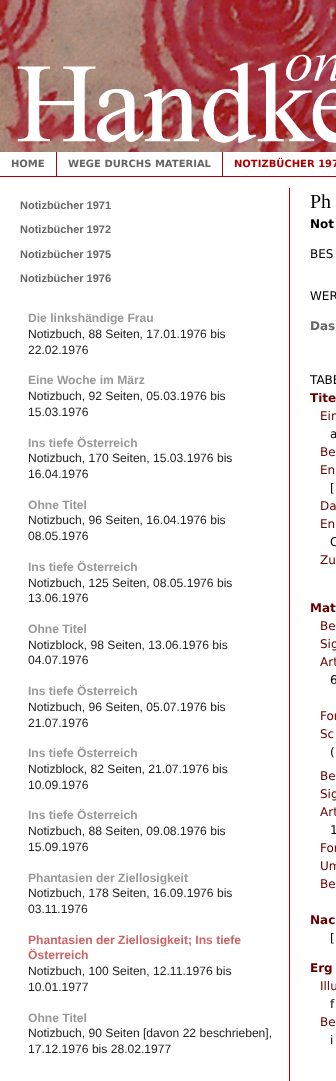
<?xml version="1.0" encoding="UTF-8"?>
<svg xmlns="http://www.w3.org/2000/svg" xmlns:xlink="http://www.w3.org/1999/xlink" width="336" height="1081">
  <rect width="100%" height="100%" fill="#ffffff" />
  <image x="0" y="0" width="336" height="152" xlink:href="image1.png" />
  <image x="17" y="54" width="319" height="89" xlink:href="image2.png" />
  <rect x="289" y="188" width="1" height="893" fill="#af0000" />
  <rect y="176" width="336" height="1" fill="#af0000" />
  <rect x="56" y="152" width="1" height="24" fill="#af0000" />
  <rect x="222" y="152" width="1" height="24" fill="#af0000" />
  <text x="11" y="167" style="font-family: DejaVu Sans; font-size: 10px; font-weight: bold; fill: #666666">HOME</text>
  <text x="68" y="167" style="font-family: DejaVu Sans; font-size: 10px; font-weight: bold; fill: #666666">WEGE DURCHS MATERIAL</text>
  <text x="234" y="167" style="font-family: DejaVu Sans; font-size: 10px; font-weight: bold; fill: #af0000">NOTIZBÜCHER 197</text>
  <text x="20" y="209" style="font-family: Liberation Sans; font-size: 11px; font-weight: bold; fill: #666666">Notizbücher 1971</text>
  <text x="20" y="233" style="font-family: Liberation Sans; font-size: 11px; font-weight: bold; fill: #666666">Notizbücher 1972</text>
  <text x="20" y="258" style="font-family: Liberation Sans; font-size: 11px; font-weight: bold; fill: #666666">Notizbücher 1975</text>
  <text x="20" y="282" style="font-family: Liberation Sans; font-size: 11px; font-weight: bold; fill: #666666">Notizbücher 1976</text>
  <text x="28" y="322" style="font-family: Liberation Sans; font-size: 12.1px; font-weight: bold; fill: #999999">Die linkshändige Frau</text>
  <text x="28" y="338" style="font-family: Liberation Sans; font-size: 12.1px; fill: #222222">Notizbuch, 88 Seiten, 17.01.1976 bis</text>
  <text x="28" y="354" style="font-family: Liberation Sans; font-size: 12.1px; fill: #222222">22.02.1976</text>
  <text x="28" y="384" style="font-family: Liberation Sans; font-size: 12.1px; font-weight: bold; fill: #999999">Eine Woche im März</text>
  <text x="28" y="400" style="font-family: Liberation Sans; font-size: 12.1px; fill: #222222">Notizbuch, 92 Seiten, 05.03.1976 bis</text>
  <text x="28" y="416" style="font-family: Liberation Sans; font-size: 12.1px; fill: #222222">15.03.1976</text>
  <text x="28" y="447" style="font-family: Liberation Sans; font-size: 12.1px; font-weight: bold; fill: #999999">Ins tiefe Österreich</text>
  <text x="28" y="462" style="font-family: Liberation Sans; font-size: 12.1px; fill: #222222">Notizbuch, 170 Seiten, 15.03.1976 bis</text>
  <text x="28" y="478" style="font-family: Liberation Sans; font-size: 12.1px; fill: #222222">16.04.1976</text>
  <text x="28" y="509" style="font-family: Liberation Sans; font-size: 12.1px; font-weight: bold; fill: #999999">Ohne Titel</text>
  <text x="28" y="524" style="font-family: Liberation Sans; font-size: 12.1px; fill: #222222">Notizbuch, 96 Seiten, 16.04.1976 bis</text>
  <text x="28" y="540" style="font-family: Liberation Sans; font-size: 12.1px; fill: #222222">08.05.1976</text>
  <text x="28" y="571" style="font-family: Liberation Sans; font-size: 12.1px; font-weight: bold; fill: #999999">Ins tiefe Österreich</text>
  <text x="28" y="587" style="font-family: Liberation Sans; font-size: 12.1px; fill: #222222">Notizbuch, 125 Seiten, 08.05.1976 bis</text>
  <text x="28" y="602" style="font-family: Liberation Sans; font-size: 12.1px; fill: #222222">13.06.1976</text>
  <text x="28" y="633" style="font-family: Liberation Sans; font-size: 12.1px; font-weight: bold; fill: #999999">Ohne Titel</text>
  <text x="28" y="649" style="font-family: Liberation Sans; font-size: 12.1px; fill: #222222">Notizblock, 98 Seiten, 13.06.1976 bis</text>
  <text x="28" y="664" style="font-family: Liberation Sans; font-size: 12.1px; fill: #222222">04.07.1976</text>
  <text x="28" y="695" style="font-family: Liberation Sans; font-size: 12.1px; font-weight: bold; fill: #999999">Ins tiefe Österreich</text>
  <text x="28" y="711" style="font-family: Liberation Sans; font-size: 12.1px; fill: #222222">Notizbuch, 96 Seiten, 05.07.1976 bis</text>
  <text x="28" y="727" style="font-family: Liberation Sans; font-size: 12.1px; fill: #222222">21.07.1976</text>
  <text x="28" y="757" style="font-family: Liberation Sans; font-size: 12.1px; font-weight: bold; fill: #999999">Ins tiefe Österreich</text>
  <text x="28" y="773" style="font-family: Liberation Sans; font-size: 12.1px; fill: #222222">Notizblock, 82 Seiten, 21.07.1976 bis</text>
  <text x="28" y="789" style="font-family: Liberation Sans; font-size: 12.1px; fill: #222222">10.09.1976</text>
  <text x="28" y="819" style="font-family: Liberation Sans; font-size: 12.1px; font-weight: bold; fill: #999999">Ins tiefe Österreich</text>
  <text x="28" y="835" style="font-family: Liberation Sans; font-size: 12.1px; fill: #222222">Notizbuch, 88 Seiten, 09.08.1976 bis</text>
  <text x="28" y="851" style="font-family: Liberation Sans; font-size: 12.1px; fill: #222222">15.09.1976</text>
  <text x="28" y="882" style="font-family: Liberation Sans; font-size: 12.1px; font-weight: bold; fill: #999999">Phantasien der Ziellosigkeit</text>
  <text x="28" y="897" style="font-family: Liberation Sans; font-size: 12.1px; fill: #222222">Notizbuch, 178 Seiten, 16.09.1976 bis</text>
  <text x="28" y="913" style="font-family: Liberation Sans; font-size: 12.1px; fill: #222222">03.11.1976</text>
  <text x="28" y="944" style="font-family: Liberation Sans; font-size: 12.1px; font-weight: bold; fill: #cc6666">Phantasien der Ziellosigkeit; Ins tiefe</text>
  <text x="28" y="959" style="font-family: Liberation Sans; font-size: 12.1px; font-weight: bold; fill: #cc6666">Österreich</text>
  <text x="28" y="975" style="font-family: Liberation Sans; font-size: 12.1px; fill: #222222">Notizbuch, 100 Seiten, 12.11.1976 bis</text>
  <text x="28" y="991" style="font-family: Liberation Sans; font-size: 12.1px; fill: #222222">10.01.1977</text>
  <text x="28" y="1022" style="font-family: Liberation Sans; font-size: 12.1px; font-weight: bold; fill: #999999">Ohne Titel</text>
  <text x="28" y="1037" style="font-family: Liberation Sans; font-size: 12.1px; fill: #222222">Notizbuch, 90 Seiten [davon 22 beschrieben],</text>
  <text x="28" y="1053" style="font-family: Liberation Sans; font-size: 12.1px; fill: #222222">17.12.1976 bis 28.02.1977</text>
  <text x="310" y="208" style="font-family: Liberation Serif; font-size: 20px; fill: #000000">Ph</text>
  <text x="310" y="228" style="font-family: DejaVu Sans; font-size: 12px; font-weight: bold; fill: #000000">Not</text>
  <text x="310" y="258" style="font-family: DejaVu Sans; font-size: 12px; fill: #000000">BES</text>
  <text x="310" y="300" style="font-family: DejaVu Sans; font-size: 12px; fill: #000000">WER</text>
  <text x="310" y="330" style="font-family: DejaVu Sans; font-size: 12px; font-weight: bold; fill: #666666">Das</text>
  <text x="310" y="384" style="font-family: DejaVu Sans; font-size: 12px; fill: #000000">TABE</text>
  <text x="310" y="402" style="font-family: DejaVu Sans; font-size: 12px; font-weight: bold; fill: #660000">Tite</text>
  <text x="320" y="420" style="font-family: DejaVu Sans; font-size: 12px; fill: #660000">Ein</text>
  <text x="330" y="438" style="font-family: DejaVu Sans; font-size: 12px; fill: #000000">a</text>
  <text x="320" y="456" style="font-family: DejaVu Sans; font-size: 12px; fill: #660000">Be</text>
  <text x="320" y="474" style="font-family: DejaVu Sans; font-size: 12px; fill: #660000">En</text>
  <text x="330" y="492" style="font-family: DejaVu Sans; font-size: 12px; fill: #000000">[</text>
  <text x="320" y="510" style="font-family: DejaVu Sans; font-size: 12px; fill: #660000">Da</text>
  <text x="320" y="528" style="font-family: DejaVu Sans; font-size: 12px; fill: #660000">En</text>
  <text x="330" y="546" style="font-family: DejaVu Sans; font-size: 12px; fill: #000000">C</text>
  <text x="320" y="564" style="font-family: DejaVu Sans; font-size: 12px; fill: #660000">Zu</text>
  <text x="310" y="612" style="font-family: DejaVu Sans; font-size: 12px; font-weight: bold; fill: #660000">Mat</text>
  <text x="320" y="630" style="font-family: DejaVu Sans; font-size: 12px; fill: #660000">Be</text>
  <text x="320" y="648" style="font-family: DejaVu Sans; font-size: 12px; fill: #660000">Sig</text>
  <text x="320" y="666" style="font-family: DejaVu Sans; font-size: 12px; fill: #660000">Art</text>
  <text x="330" y="684" style="font-family: DejaVu Sans; font-size: 12px; fill: #000000">6</text>
  <text x="320" y="720" style="font-family: DejaVu Sans; font-size: 12px; fill: #660000">For</text>
  <text x="320" y="738" style="font-family: DejaVu Sans; font-size: 12px; fill: #660000">Sc</text>
  <text x="330" y="756" style="font-family: DejaVu Sans; font-size: 12px; fill: #000000">(</text>
  <text x="320" y="780" style="font-family: DejaVu Sans; font-size: 12px; fill: #660000">Be</text>
  <text x="320" y="798" style="font-family: DejaVu Sans; font-size: 12px; fill: #660000">Sig</text>
  <text x="320" y="816" style="font-family: DejaVu Sans; font-size: 12px; fill: #660000">Art</text>
  <text x="330" y="834" style="font-family: DejaVu Sans; font-size: 12px; fill: #000000">1</text>
  <text x="320" y="852" style="font-family: DejaVu Sans; font-size: 12px; fill: #660000">For</text>
  <text x="320" y="870" style="font-family: DejaVu Sans; font-size: 12px; fill: #660000">Um</text>
  <text x="320" y="888" style="font-family: DejaVu Sans; font-size: 12px; fill: #660000">Be</text>
  <text x="310" y="924" style="font-family: DejaVu Sans; font-size: 12px; font-weight: bold; fill: #660000">Nac</text>
  <text x="330" y="942" style="font-family: DejaVu Sans; font-size: 12px; fill: #000000">[</text>
  <text x="310" y="972" style="font-family: DejaVu Sans; font-size: 12px; font-weight: bold; fill: #660000">Erg</text>
  <text x="320" y="990" style="font-family: DejaVu Sans; font-size: 12px; fill: #660000">Illu</text>
  <text x="330" y="1008" style="font-family: DejaVu Sans; font-size: 12px; fill: #000000">f</text>
  <text x="320" y="1026" style="font-family: DejaVu Sans; font-size: 12px; fill: #660000">Be</text>
  <text x="330" y="1044" style="font-family: DejaVu Sans; font-size: 12px; fill: #000000">i</text>
</svg>
